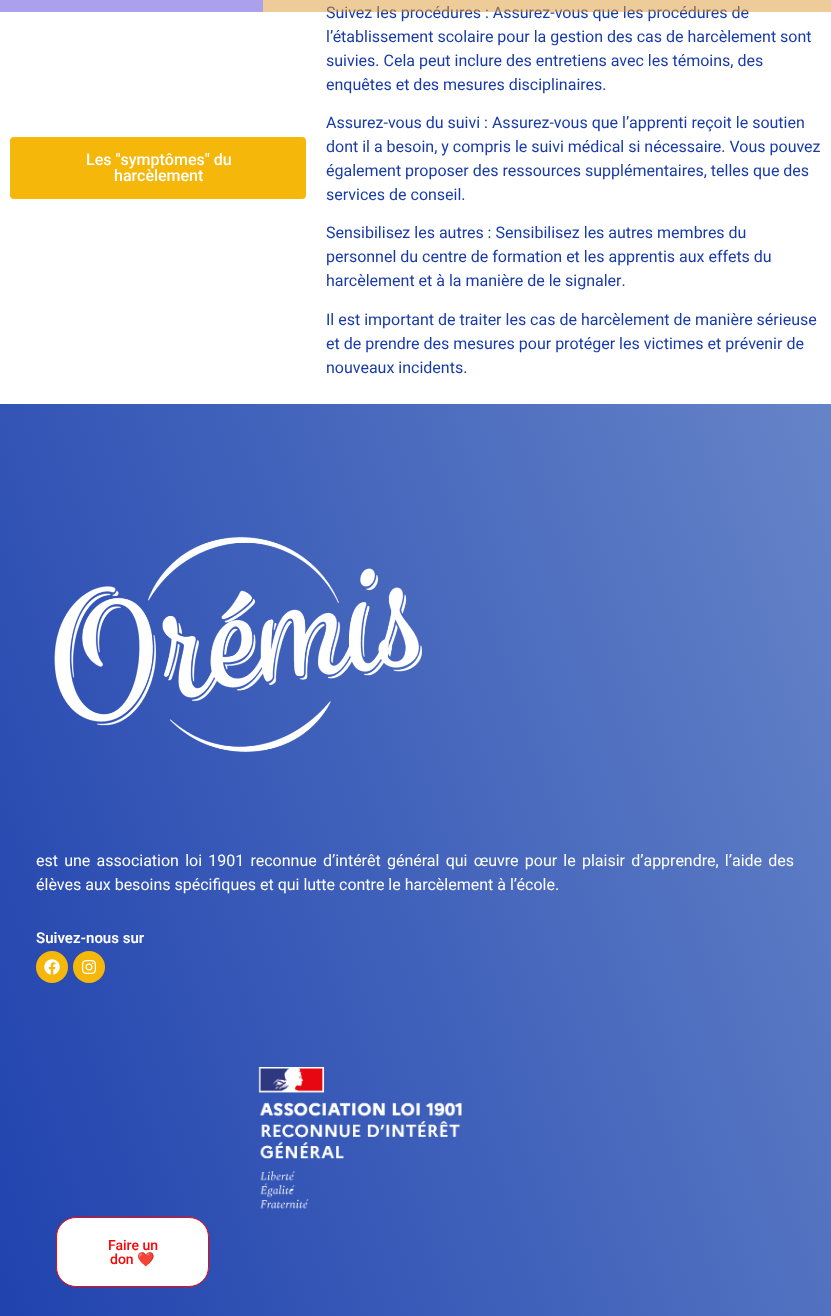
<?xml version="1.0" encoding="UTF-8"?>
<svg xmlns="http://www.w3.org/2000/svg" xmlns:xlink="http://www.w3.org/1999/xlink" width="831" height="1316">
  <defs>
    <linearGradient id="g1" gradientUnits="userSpaceOnUse" x1="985" y1="851" x2="-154" y2="1243"><stop offset="0" stop-color="#6584c8" /><stop offset="1" stop-color="#183bab" /></linearGradient>
  </defs>
  <rect width="100%" height="100%" fill="#ffffff" />
  <rect width="263" height="12" fill="#aaa0ec" />
  <rect x="10" y="137" width="296" height="62" rx="4" fill="#f6b70b" />
  <rect y="404" width="831" height="912" fill="url(#g1)" />
  <image x="54" y="536" width="368" height="217" xlink:href="image1.png" />
  <circle cx="52" cy="967" r="16" fill="#f6b70b" />
  <image x="44" y="959" width="16" height="16" xlink:href="image2.png" />
  <circle cx="89" cy="967" r="16" fill="#f6b70b" />
  <image x="82" y="960" width="14" height="14" xlink:href="image3.png" />
  <image x="258" y="1067" width="204" height="142" xlink:href="image4.png" />
  <rect x="56.5" y="1217.5" width="152" height="69" rx="19.5" fill="#ffffff" stroke="#fd0404" />
  <text x="86" y="165" style="font-family: Roboto; font-size: 16px; font-weight: 500; fill: #ffffff">Les "symptômes" du</text>
  <text x="114" y="181" style="font-family: Roboto; font-size: 16px; font-weight: 500; fill: #ffffff">harcèlement</text>
  <text x="326" y="18" style="font-family: Roboto; font-size: 16px; fill: #183bab">Suivez les procédures : Assurez-vous que les procédures de</text>
  <rect x="263" width="568" height="12" fill="#dd9933" fill-opacity="0.5" />
  <text x="326" y="42" style="font-family: Roboto; font-size: 16px; fill: #183bab">l’établissement scolaire pour la gestion des cas de harcèlement sont</text>
  <text x="326" y="66" style="font-family: Roboto; font-size: 16px; fill: #183bab">suivies. Cela peut inclure des entretiens avec les témoins, des</text>
  <text x="326" y="90" style="font-family: Roboto; font-size: 16px; fill: #183bab">enquêtes et des mesures disciplinaires.</text>
  <text x="326" y="128" style="font-family: Roboto; font-size: 16px; fill: #183bab">Assurez-vous du suivi : Assurez-vous que l’apprenti reçoit le soutien</text>
  <text x="326" y="152" style="font-family: Roboto; font-size: 16px; fill: #183bab">dont il a besoin, y compris le suivi médical si nécessaire. Vous pouvez</text>
  <text x="326" y="176" style="font-family: Roboto; font-size: 16px; fill: #183bab">également proposer des ressources supplémentaires, telles que des</text>
  <text x="326" y="200" style="font-family: Roboto; font-size: 16px; fill: #183bab">services de conseil.</text>
  <text x="326" y="238" style="font-family: Roboto; font-size: 16px; fill: #183bab">Sensibilisez les autres : Sensibilisez les autres membres du</text>
  <text x="326" y="262" style="font-family: Roboto; font-size: 16px; fill: #183bab">personnel du centre de formation et les apprentis aux effets du</text>
  <text x="326" y="286" style="font-family: Roboto; font-size: 16px; fill: #183bab">harcèlement et à la manière de le signaler.</text>
  <text x="326" y="325" style="font-family: Roboto; font-size: 16px; fill: #183bab">Il est important de traiter les cas de harcèlement de manière sérieuse</text>
  <text x="326" y="349" style="font-family: Roboto; font-size: 16px; fill: #183bab">et de prendre des mesures pour protéger les victimes et prévenir de</text>
  <text x="326" y="373" style="font-family: Roboto; font-size: 16px; fill: #183bab">nouveaux incidents.</text>
  <text x="36" y="866" word-spacing="2.25" style="font-family: Roboto; font-size: 16px; fill: #ffffff">est une association loi 1901 reconnue d’intérêt général qui œuvre pour le plaisir d’apprendre, l’aide des</text>
  <text x="36" y="890" style="font-family: Roboto; font-size: 16px; fill: #ffffff">élèves aux besoins spécifiques et qui lutte contre le harcèlement à l’école.</text>
  <text x="36" y="943" style="font-family: Roboto; font-size: 15px; font-weight: 600; fill: #ffffff">Suivez-nous sur</text>
  <text x="108" y="1250" style="font-family: Roboto; font-size: 14px; font-weight: 500; fill: #fd0404">Faire un</text>
  <text x="110" y="1264" style="font-family: Roboto; font-size: 14px; font-weight: 500; fill: #fd0404">don</text>
  <text x="137" y="1264" style="font-family: Noto Color Emoji; font-size: 14px; fill: #fd0404">❤️</text>
</svg>
